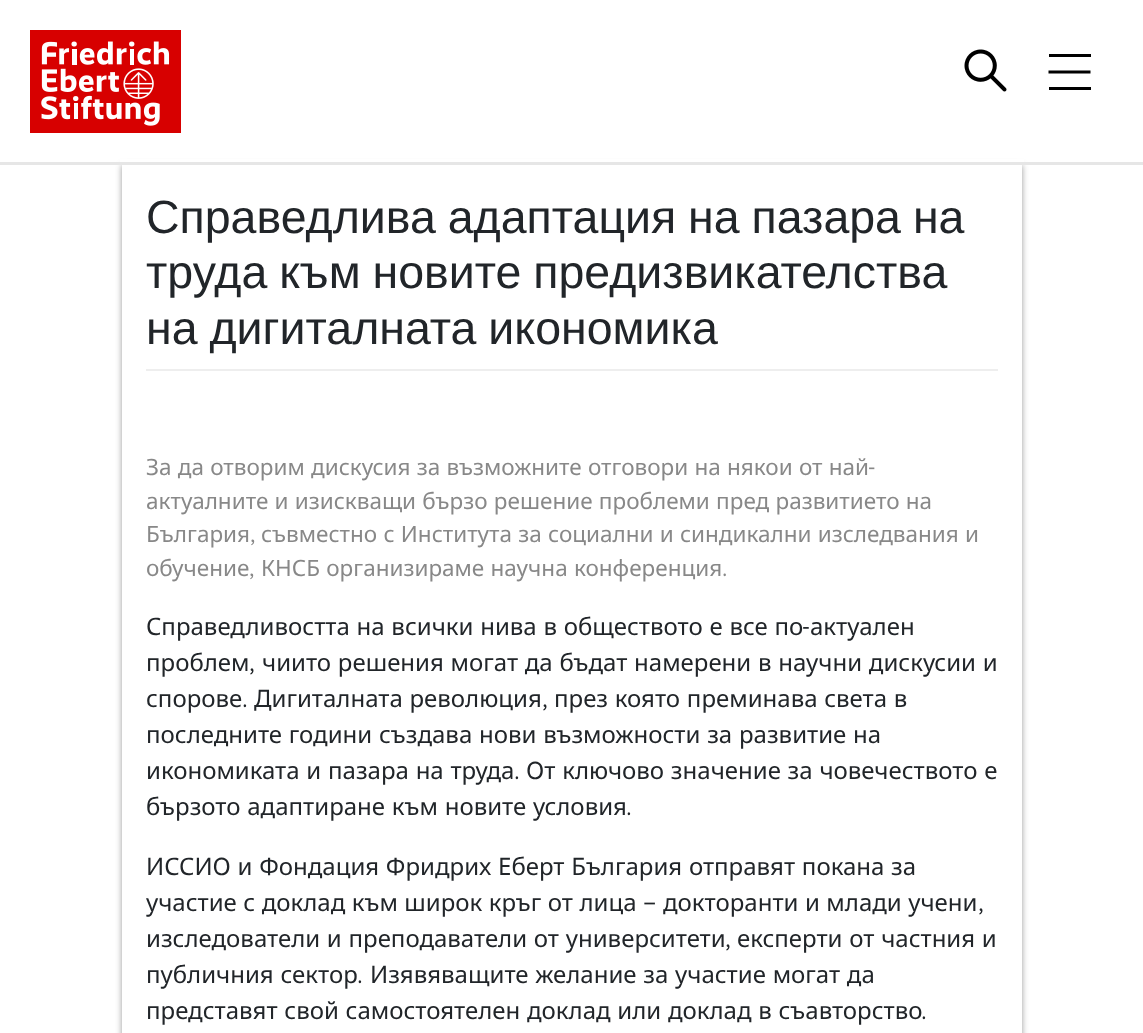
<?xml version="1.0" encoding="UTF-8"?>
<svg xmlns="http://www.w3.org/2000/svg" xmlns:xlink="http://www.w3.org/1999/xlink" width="1143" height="1033">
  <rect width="100%" height="100%" fill="#ffffff" />
  <rect x="122" y="165" width="900" height="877" fill="#000000" fill-opacity="0.4" filter="blur(3px)" />
  <rect x="120" y="159" width="904" height="3" fill="#ffffff" />
  <rect y="162" width="1143" height="3" fill="#e6e6e6" />
  <image x="30" y="30" width="151" height="103" xlink:href="image1.png" />
  <image x="964" y="49" width="43" height="43" xlink:href="image2.png" />
  <rect x="1049" y="54" width="42" height="3" fill="#000000" />
  <path d="M 1048.5 72 h 42" fill="none" stroke="#000000" stroke-width="3" />
  <rect x="1049" y="87" width="42" height="3" fill="#000000" />
  <rect x="122" y="165" width="900" height="868" fill="#ffffff" />
  <rect x="146" y="369" width="852" height="2" fill="#eeeeee" />
  <text x="146" y="233" word-spacing="-1" style="font-family: Liberation Sans; font-size: 46.5px; fill: #212529">Справедлива адаптация на пазара на</text>
  <text x="146" y="288" word-spacing="-1" style="font-family: Liberation Sans; font-size: 46.5px; fill: #212529">труда към новите предизвикателства</text>
  <text x="146" y="344" word-spacing="-1" style="font-family: Liberation Sans; font-size: 46.5px; fill: #212529">на дигиталната икономика</text>
  <text x="146" y="475" word-spacing="0.4" style="font-family: Noto Sans; font-size: 22.5px; fill: #888888">За да отворим дискусия за възможните отговори на някои от най</text>
  <text x="868" y="475" style="font-family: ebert; font-size: 22.5px; fill: #888888">-</text>
  <text x="146" y="509" word-spacing="0.4" style="font-family: Noto Sans; font-size: 22.5px; fill: #888888">актуалните и изискващи бързо решение проблеми пред развитието на</text>
  <text x="146" y="542" style="font-family: Noto Sans; font-size: 22.5px; fill: #888888">България</text>
  <text x="250" y="542" style="font-family: ebert; font-size: 22.5px; fill: #888888">,</text>
  <text x="261" y="542" word-spacing="0.4" style="font-family: Noto Sans; font-size: 22.5px; fill: #888888">съвместно с Института за социални и синдикални изследвания и</text>
  <text x="146" y="576" style="font-family: Noto Sans; font-size: 22.5px; fill: #888888">обучение</text>
  <text x="249" y="576" style="font-family: ebert; font-size: 22.5px; fill: #888888">,</text>
  <text x="261" y="576" word-spacing="0.4" style="font-family: Noto Sans; font-size: 22.5px; fill: #888888">КНСБ организираме научна конференция</text>
  <text x="722" y="576" style="font-family: ebert; font-size: 22.5px; fill: #888888">.</text>
  <text x="146" y="635" word-spacing="0.5" style="font-family: Noto Sans; font-size: 24px; fill: #212529">Справедливостта на всички нива в обществото е все по</text>
  <text x="802" y="635" style="font-family: ebert; font-size: 24px; fill: #212529">-</text>
  <text x="810" y="635" style="font-family: Noto Sans; font-size: 24px; fill: #212529">актуален</text>
  <text x="146" y="671" style="font-family: Noto Sans; font-size: 24px; fill: #212529">проблем</text>
  <text x="249" y="671" style="font-family: ebert; font-size: 24px; fill: #212529">,</text>
  <text x="262" y="671" word-spacing="0.5" style="font-family: Noto Sans; font-size: 24px; fill: #212529">чиито решения могат да бъдат намерени в научни дискусии и</text>
  <text x="146" y="707" style="font-family: Noto Sans; font-size: 24px; fill: #212529">спорове</text>
  <text x="242" y="707" style="font-family: ebert; font-size: 24px; fill: #212529">.</text>
  <text x="254" y="707" word-spacing="0.5" style="font-family: Noto Sans; font-size: 24px; fill: #212529">Дигиталната революция</text>
  <text x="542" y="707" style="font-family: ebert; font-size: 24px; fill: #212529">,</text>
  <text x="554" y="707" word-spacing="0.5" style="font-family: Noto Sans; font-size: 24px; fill: #212529">през която преминава света в</text>
  <text x="146" y="743" word-spacing="0.5" style="font-family: Noto Sans; font-size: 24px; fill: #212529">последните години създава нови възможности за развитие на</text>
  <text x="146" y="779" word-spacing="0.5" style="font-family: Noto Sans; font-size: 24px; fill: #212529">икономиката и пазара на труда</text>
  <text x="514" y="779" style="font-family: ebert; font-size: 24px; fill: #212529">.</text>
  <text x="526" y="779" word-spacing="0.5" style="font-family: Noto Sans; font-size: 24px; fill: #212529">От ключово значение за човечеството е</text>
  <text x="146" y="815" word-spacing="0.5" style="font-family: Noto Sans; font-size: 24px; fill: #212529">бързото адаптиране към новите условия</text>
  <text x="626" y="815" style="font-family: ebert; font-size: 24px; fill: #212529">.</text>
  <text x="146" y="875" word-spacing="0.5" style="font-family: Noto Sans; font-size: 24px; fill: #212529">ИССИО и Фондация Фридрих Еберт България отправят покана за</text>
  <text x="146" y="911" word-spacing="0.25" style="font-family: Noto Sans; font-size: 24px; fill: #212529">участие с доклад към широк кръг от лица</text>
  <text x="643" y="911" style="font-family: ebert; font-size: 24px; fill: #212529">–</text>
  <text x="663" y="911" word-spacing="0.25" style="font-family: Noto Sans; font-size: 24px; fill: #212529">докторанти и млади учени</text>
  <text x="978" y="911" style="font-family: ebert; font-size: 24px; fill: #212529">,</text>
  <text x="146" y="947" word-spacing="0.5" style="font-family: Noto Sans; font-size: 24px; fill: #212529">изследователи и преподаватели от университети</text>
  <text x="725" y="947" style="font-family: ebert; font-size: 24px; fill: #212529">,</text>
  <text x="737" y="947" word-spacing="0.5" style="font-family: Noto Sans; font-size: 24px; fill: #212529">експерти от частния и</text>
  <text x="146" y="983" word-spacing="0.5" style="font-family: Noto Sans; font-size: 24px; fill: #212529">публичния сектор</text>
  <text x="357" y="983" style="font-family: ebert; font-size: 24px; fill: #212529">.</text>
  <text x="370" y="983" word-spacing="0.5" style="font-family: Noto Sans; font-size: 24px; fill: #212529">Изявяващите желание за участие могат да</text>
  <text x="146" y="1019" word-spacing="0.5" style="font-family: Noto Sans; font-size: 24px; fill: #212529">представят свой самостоятелен доклад или доклад в съавторство</text>
  <text x="921" y="1019" style="font-family: ebert; font-size: 24px; fill: #212529">.</text>
</svg>
